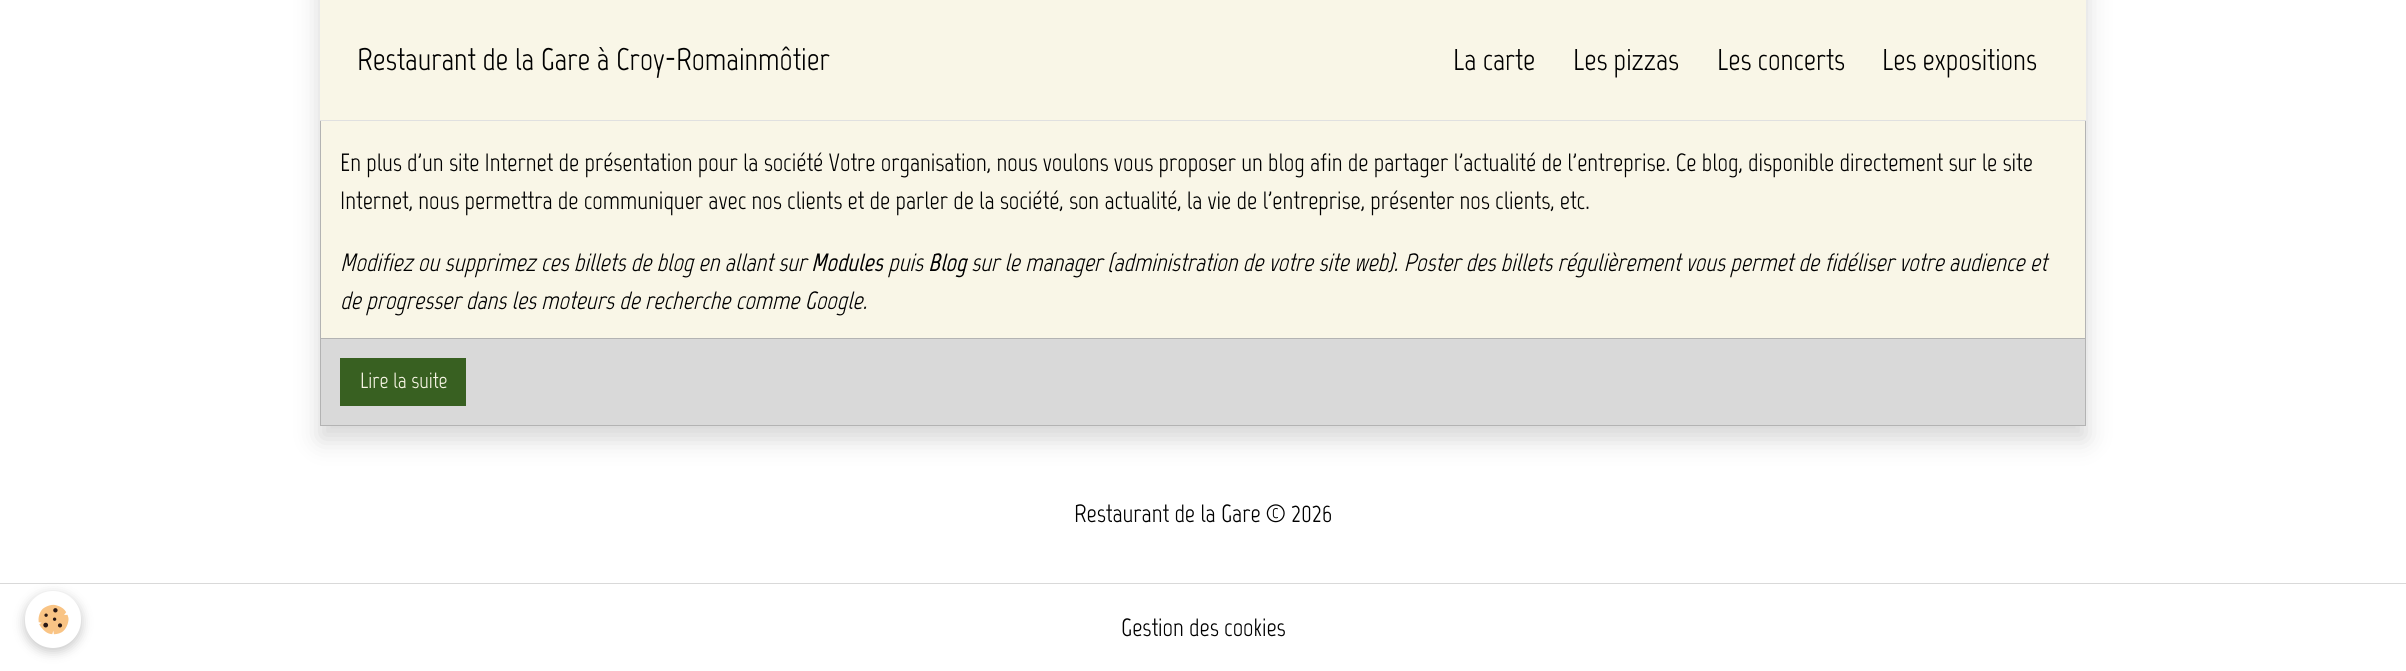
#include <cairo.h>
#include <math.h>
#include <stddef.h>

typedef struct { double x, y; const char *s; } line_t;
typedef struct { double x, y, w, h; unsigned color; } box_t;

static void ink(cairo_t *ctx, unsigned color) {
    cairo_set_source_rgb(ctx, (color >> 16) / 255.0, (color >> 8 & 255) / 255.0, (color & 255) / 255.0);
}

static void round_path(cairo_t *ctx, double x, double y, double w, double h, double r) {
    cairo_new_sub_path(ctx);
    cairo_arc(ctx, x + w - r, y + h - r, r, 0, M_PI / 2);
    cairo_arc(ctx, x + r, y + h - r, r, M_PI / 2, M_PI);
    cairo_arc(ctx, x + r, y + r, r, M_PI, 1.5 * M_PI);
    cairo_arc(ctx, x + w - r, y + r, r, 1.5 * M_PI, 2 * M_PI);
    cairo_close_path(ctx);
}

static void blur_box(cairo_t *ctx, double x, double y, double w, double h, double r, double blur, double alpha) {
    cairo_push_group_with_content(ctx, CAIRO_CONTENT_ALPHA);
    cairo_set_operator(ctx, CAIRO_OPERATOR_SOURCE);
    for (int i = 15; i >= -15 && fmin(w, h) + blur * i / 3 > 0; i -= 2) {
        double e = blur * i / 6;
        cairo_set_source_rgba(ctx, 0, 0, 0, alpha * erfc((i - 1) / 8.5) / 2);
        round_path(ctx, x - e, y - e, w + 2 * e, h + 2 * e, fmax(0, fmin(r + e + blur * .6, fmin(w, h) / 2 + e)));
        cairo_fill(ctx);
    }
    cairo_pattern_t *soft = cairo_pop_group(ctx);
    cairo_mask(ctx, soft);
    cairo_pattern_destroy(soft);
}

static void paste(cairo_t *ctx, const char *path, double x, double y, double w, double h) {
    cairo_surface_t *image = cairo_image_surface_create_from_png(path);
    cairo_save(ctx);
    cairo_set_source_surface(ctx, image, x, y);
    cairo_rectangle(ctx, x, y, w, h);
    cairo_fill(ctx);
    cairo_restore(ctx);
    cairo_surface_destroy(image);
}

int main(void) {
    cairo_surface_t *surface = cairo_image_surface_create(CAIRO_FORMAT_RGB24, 2406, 671);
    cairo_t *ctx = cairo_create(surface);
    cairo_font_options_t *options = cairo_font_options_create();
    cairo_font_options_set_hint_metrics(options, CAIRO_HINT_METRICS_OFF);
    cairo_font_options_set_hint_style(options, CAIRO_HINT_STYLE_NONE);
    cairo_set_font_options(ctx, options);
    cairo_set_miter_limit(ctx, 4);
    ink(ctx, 0xFFFFFF);
    cairo_paint(ctx);
    ink(ctx, 0x757575);
    blur_box(ctx, 320, -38, 1766, 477, 0, 12.5, 0.3);
    ink(ctx, 0xF9F6E7);
    cairo_rectangle(ctx, 321, 121, 1764, 217);
    cairo_fill(ctx);
    cairo_rectangle(ctx, 320.5, -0.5, 1765, 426);
    ink(ctx, 0xB3B3B3);
    cairo_set_line_width(ctx, 1);
    cairo_stroke(ctx);
    ink(ctx, 0xF9F6E7);
    cairo_rectangle(ctx, 320, 0, 1766, 120);
    cairo_fill(ctx);
    ink(ctx, 0xE0E0E0);
    cairo_rectangle(ctx, 320, 120, 1766, 1);
    cairo_fill(ctx);
    cairo_select_font_face(ctx, "Marvel", CAIRO_FONT_SLANT_NORMAL, CAIRO_FONT_WEIGHT_NORMAL);
    cairo_set_font_size(ctx, 31.25);
    ink(ctx, 0x000000);
    cairo_move_to(ctx, 357, 70);
    cairo_show_text(ctx, "Restaurant de la Gare à Croy-Romainmôtier");
    cairo_set_font_size(ctx, 30);
    {
        static const line_t items[] = {
            {1453, 70, "La carte"},
            {1573, 70, "Les pizzas"},
            {1717, 70, "Les concerts"},
            {1882, 70, "Les expositions"},
        };
        for (size_t i = 0; i < sizeof items / sizeof *items; i++) {
            cairo_move_to(ctx, items[i].x, items[i].y);
            cairo_show_text(ctx, items[i].s);
        }
    }
    cairo_set_font_size(ctx, 25);
    cairo_move_to(ctx, 340, 171);
    cairo_show_text(ctx, "En plus d'un site Internet de présentation pour la société Votre organisation, nous voulons vous proposer un blog afin de partager l'actualité de l'entreprise. Ce blog, disponible directement sur le site");
    cairo_move_to(ctx, 340, 209);
    cairo_show_text(ctx, "Internet, nous permettra de communiquer avec nos clients et de parler de la société, son actualité, la vie de l'entreprise, présenter nos clients, etc.");
    cairo_select_font_face(ctx, "Marvel", CAIRO_FONT_SLANT_ITALIC, CAIRO_FONT_WEIGHT_NORMAL);
    cairo_move_to(ctx, 340, 271);
    cairo_show_text(ctx, "Modifiez ou supprimez ces billets de blog en allant sur");
    cairo_select_font_face(ctx, "Marvel", CAIRO_FONT_SLANT_ITALIC, CAIRO_FONT_WEIGHT_BOLD);
    cairo_move_to(ctx, 811, 271);
    cairo_show_text(ctx, "Modules");
    cairo_select_font_face(ctx, "Marvel", CAIRO_FONT_SLANT_ITALIC, CAIRO_FONT_WEIGHT_NORMAL);
    cairo_move_to(ctx, 888, 271);
    cairo_show_text(ctx, "puis");
    cairo_select_font_face(ctx, "Marvel", CAIRO_FONT_SLANT_ITALIC, CAIRO_FONT_WEIGHT_BOLD);
    cairo_move_to(ctx, 928, 271);
    cairo_show_text(ctx, "Blog");
    cairo_select_font_face(ctx, "Marvel", CAIRO_FONT_SLANT_ITALIC, CAIRO_FONT_WEIGHT_NORMAL);
    cairo_move_to(ctx, 971, 271);
    cairo_show_text(ctx, "sur le manager (administration de votre site web). Poster des billets régulièrement vous permet de fidéliser votre audience et");
    cairo_move_to(ctx, 340, 309);
    cairo_show_text(ctx, "de progresser dans les moteurs de recherche comme Google.");
    {
        static const box_t items[] = {
            {321, 339, 1764, 86, 0xD9D9D9},
            {321, 338, 1764, 1, 0xB3B3B3},
            {340, 358, 126, 48, 0x386021},
        };
        for (size_t i = 0; i < sizeof items / sizeof *items; i++) {
            ink(ctx, items[i].color);
            cairo_rectangle(ctx, items[i].x, items[i].y, items[i].w, items[i].h);
            cairo_fill(ctx);
        }
    }
    cairo_select_font_face(ctx, "Marvel", CAIRO_FONT_SLANT_NORMAL, CAIRO_FONT_WEIGHT_NORMAL);
    cairo_set_font_size(ctx, 22);
    ink(ctx, 0xF9F6E7);
    cairo_move_to(ctx, 360, 388);
    cairo_show_text(ctx, "Lire la suite");
    ink(ctx, 0xD9D9D9);
    cairo_rectangle(ctx, 0, 583, 2406, 1);
    cairo_fill(ctx);
    ink(ctx, 0x000000);
    blur_box(ctx, 25, 595, 56, 56, 28, 6, 0.24);
    ink(ctx, 0xFFFFFF);
    round_path(ctx, 25, 591, 56, 57, 28);
    cairo_fill(ctx);
    paste(ctx, "media/1.png", 38, 604, 31, 31);
    cairo_set_font_size(ctx, 25);
    ink(ctx, 0x000000);
    cairo_move_to(ctx, 1074, 522);
    cairo_show_text(ctx, "Restaurant de la Gare © 2026");
    cairo_move_to(ctx, 1121, 636);
    cairo_show_text(ctx, "Gestion des cookies");
    cairo_surface_write_to_png(surface, "image.png");
    cairo_font_options_destroy(options);
    cairo_destroy(ctx);
    cairo_surface_destroy(surface);
    return 0;
}
